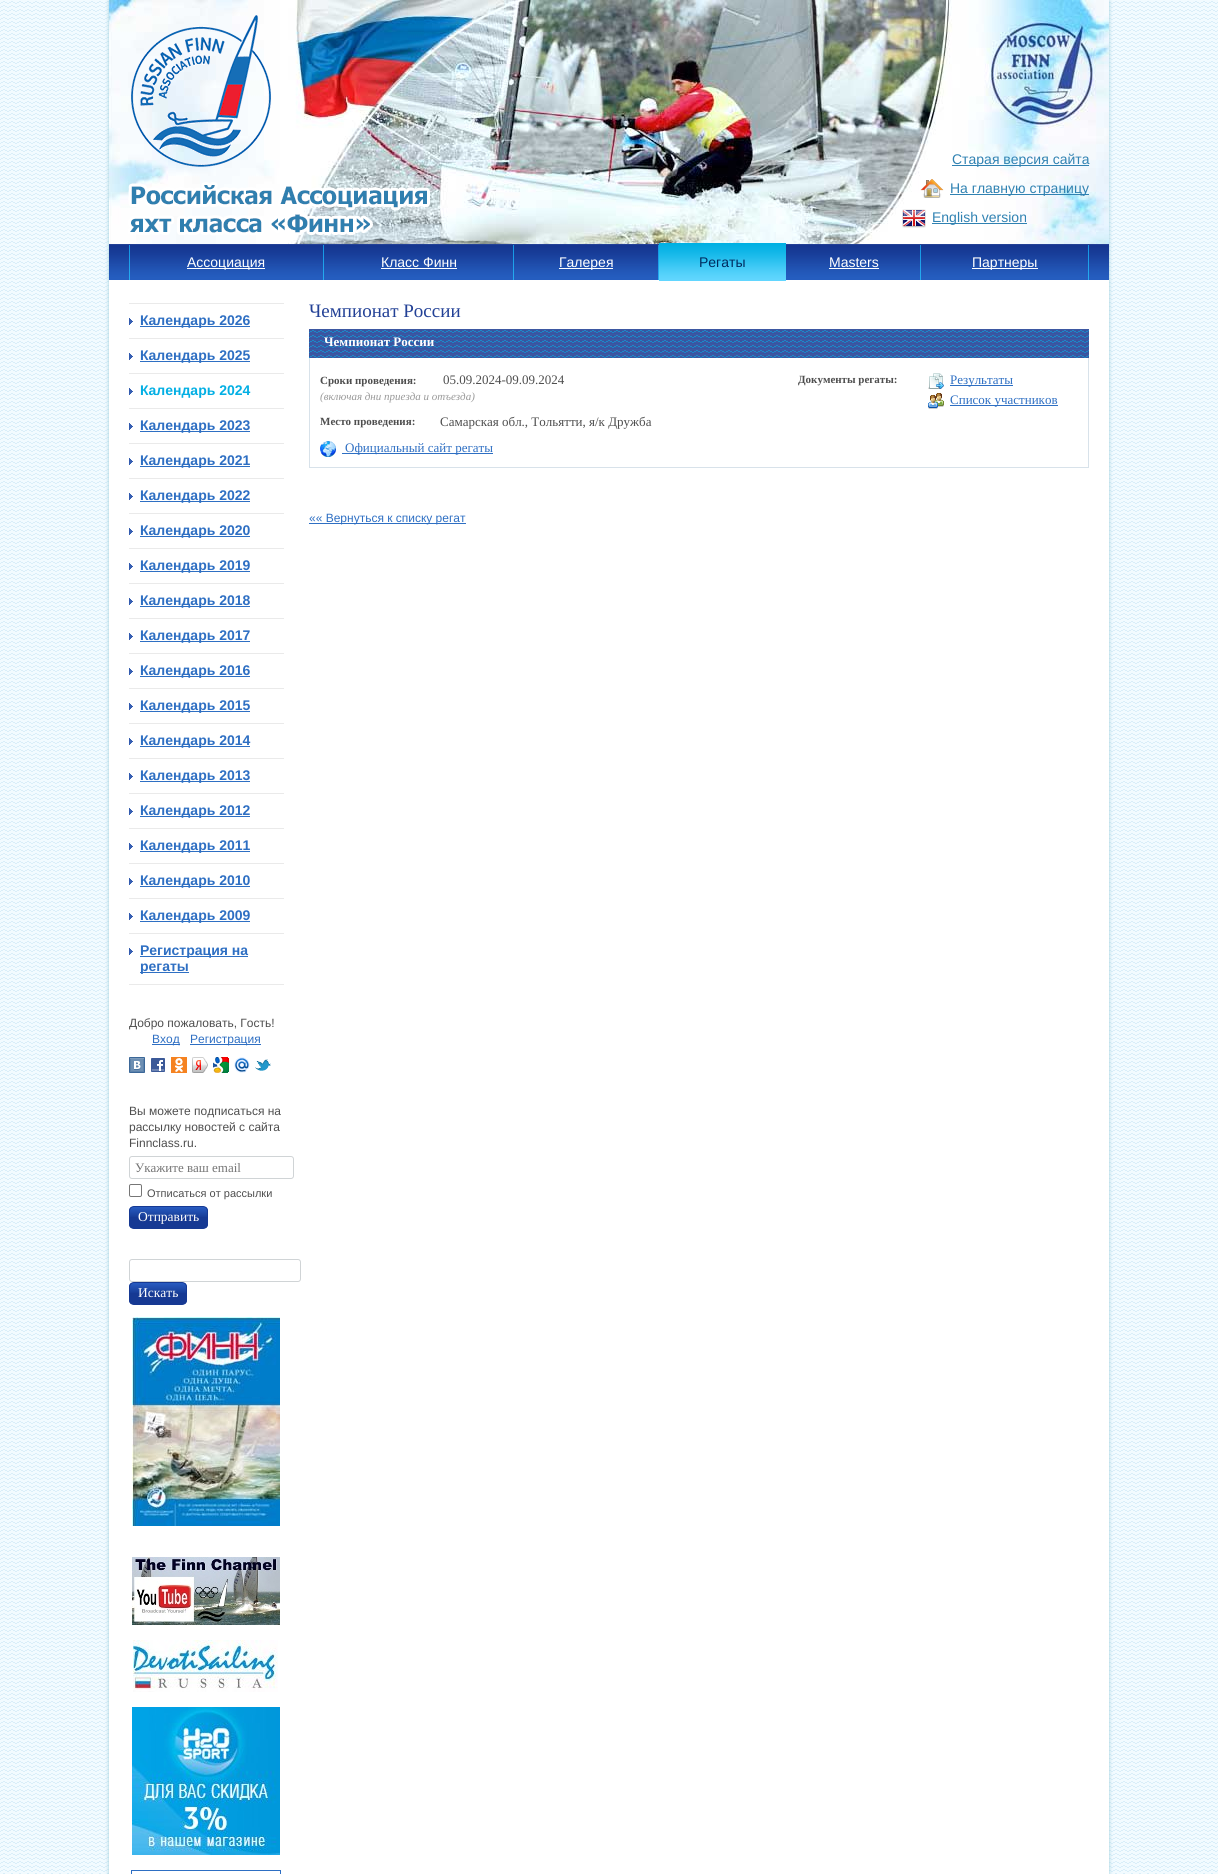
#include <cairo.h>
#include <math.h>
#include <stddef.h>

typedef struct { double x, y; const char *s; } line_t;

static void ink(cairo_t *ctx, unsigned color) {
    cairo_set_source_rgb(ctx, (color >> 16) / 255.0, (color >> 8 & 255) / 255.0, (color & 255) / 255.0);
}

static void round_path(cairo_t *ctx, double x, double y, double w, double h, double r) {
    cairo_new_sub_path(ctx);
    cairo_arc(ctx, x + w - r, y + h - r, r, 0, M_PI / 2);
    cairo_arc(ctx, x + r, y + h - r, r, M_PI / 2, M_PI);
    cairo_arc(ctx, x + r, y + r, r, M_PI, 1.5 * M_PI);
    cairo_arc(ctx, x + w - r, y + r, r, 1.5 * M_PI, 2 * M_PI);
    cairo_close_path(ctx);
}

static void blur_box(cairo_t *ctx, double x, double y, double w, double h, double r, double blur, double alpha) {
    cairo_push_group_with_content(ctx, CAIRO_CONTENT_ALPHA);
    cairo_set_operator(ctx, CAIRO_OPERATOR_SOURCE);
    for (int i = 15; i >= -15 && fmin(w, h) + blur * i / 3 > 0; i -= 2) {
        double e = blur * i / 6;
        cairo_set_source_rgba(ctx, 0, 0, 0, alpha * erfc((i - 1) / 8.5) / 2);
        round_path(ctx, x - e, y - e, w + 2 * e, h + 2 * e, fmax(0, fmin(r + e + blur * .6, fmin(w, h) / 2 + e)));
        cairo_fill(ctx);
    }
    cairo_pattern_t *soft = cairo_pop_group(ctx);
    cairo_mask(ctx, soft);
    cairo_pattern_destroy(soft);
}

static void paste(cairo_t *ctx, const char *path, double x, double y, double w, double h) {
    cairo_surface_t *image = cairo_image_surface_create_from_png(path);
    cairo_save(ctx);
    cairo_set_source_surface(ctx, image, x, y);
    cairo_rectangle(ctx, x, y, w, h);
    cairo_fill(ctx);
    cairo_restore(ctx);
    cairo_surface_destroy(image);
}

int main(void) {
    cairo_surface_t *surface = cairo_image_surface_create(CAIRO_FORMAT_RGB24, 1218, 1874);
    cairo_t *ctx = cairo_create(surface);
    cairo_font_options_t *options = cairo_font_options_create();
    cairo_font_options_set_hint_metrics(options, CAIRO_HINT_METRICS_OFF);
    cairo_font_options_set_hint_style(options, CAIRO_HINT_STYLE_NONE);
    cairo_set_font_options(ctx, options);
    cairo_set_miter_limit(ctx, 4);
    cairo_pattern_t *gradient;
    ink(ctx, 0xFFFFFF);
    cairo_paint(ctx);
    paste(ctx, "media/1.png", 0, 0, 1218, 1874);
    ink(ctx, 0x9CCCDC);
    blur_box(ctx, 109, 1, 1000, 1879, 0, 2, 1);
    ink(ctx, 0xFFFFFF);
    cairo_rectangle(ctx, 109, 280, 1000, 1594);
    cairo_fill(ctx);
    paste(ctx, "media/2.png", 109, 0, 1000, 244);
    paste(ctx, "media/3.png", 131, 15, 140, 152);
    paste(ctx, "media/4.png", 128, 182, 302, 54);
    ink(ctx, 0x3082B2);
    cairo_rectangle(ctx, 952, 165, 137, 1);
    cairo_fill(ctx);
    cairo_select_font_face(ctx, "Liberation Sans", CAIRO_FONT_SLANT_NORMAL, CAIRO_FONT_WEIGHT_NORMAL);
    cairo_set_font_size(ctx, 14);
    cairo_move_to(ctx, 952, 164);
    cairo_show_text(ctx, "Старая версия сайта");
    paste(ctx, "media/5.png", 920, 179, 24, 19);
    cairo_rectangle(ctx, 950, 194, 139, 1);
    cairo_fill(ctx);
    cairo_move_to(ctx, 950, 193);
    cairo_show_text(ctx, "На главную страницу");
    paste(ctx, "media/6.png", 902, 209, 24, 19);
    cairo_rectangle(ctx, 932, 223, 95, 1);
    cairo_fill(ctx);
    cairo_move_to(ctx, 932, 222);
    cairo_show_text(ctx, "English version");
    paste(ctx, "media/7.png", 109, 244, 1000, 36);
    paste(ctx, "media/8.png", 129, 245, 1, 35);
    paste(ctx, "media/8.png", 323, 245, 1, 35);
    ink(ctx, 0xFFFFFF);
    cairo_rectangle(ctx, 187, 268, 78, 1);
    cairo_fill(ctx);
    cairo_move_to(ctx, 187, 267);
    cairo_show_text(ctx, "Ассоциация");
    paste(ctx, "media/8.png", 513, 245, 1, 35);
    cairo_move_to(ctx, 381, 267);
    cairo_show_text(ctx, "Класс Финн");
    cairo_rectangle(ctx, 381, 268, 76, 1);
    cairo_fill(ctx);
    paste(ctx, "media/8.png", 658, 245, 1, 35);
    cairo_rectangle(ctx, 559, 268, 54, 1);
    cairo_fill(ctx);
    cairo_move_to(ctx, 559, 267);
    cairo_show_text(ctx, "Галерея");
    paste(ctx, "media/9.png", 659, 243, 127, 38);
    ink(ctx, 0x002C5F);
    cairo_move_to(ctx, 699, 267);
    cairo_show_text(ctx, "Регаты");
    paste(ctx, "media/8.png", 920, 245, 1, 35);
    ink(ctx, 0xFFFFFF);
    cairo_move_to(ctx, 829, 267);
    cairo_show_text(ctx, "Masters");
    cairo_rectangle(ctx, 829, 268, 50, 1);
    cairo_fill(ctx);
    paste(ctx, "media/8.png", 1088, 245, 1, 35);
    cairo_rectangle(ctx, 972, 268, 66, 1);
    cairo_fill(ctx);
    cairo_move_to(ctx, 972, 267);
    cairo_show_text(ctx, "Партнеры");
    ink(ctx, 0xEAEAEA);
    cairo_rectangle(ctx, 129, 303, 155, 1);
    cairo_fill(ctx);
    cairo_rectangle(ctx, 129, 338, 155, 1);
    cairo_fill(ctx);
    paste(ctx, "media/10.png", 129, 318, 4, 7);
    ink(ctx, 0x2E6FC3);
    cairo_rectangle(ctx, 140, 326, 110, 1);
    cairo_fill(ctx);
    cairo_select_font_face(ctx, "Liberation Sans", CAIRO_FONT_SLANT_NORMAL, CAIRO_FONT_WEIGHT_BOLD);
    cairo_move_to(ctx, 140, 325);
    cairo_show_text(ctx, "Календарь 2026");
    ink(ctx, 0xEAEAEA);
    cairo_rectangle(ctx, 129, 373, 155, 1);
    cairo_fill(ctx);
    paste(ctx, "media/10.png", 129, 353, 4, 7);
    ink(ctx, 0x2E6FC3);
    cairo_rectangle(ctx, 140, 361, 110, 1);
    cairo_fill(ctx);
    cairo_move_to(ctx, 140, 360);
    cairo_show_text(ctx, "Календарь 2025");
    ink(ctx, 0xEAEAEA);
    cairo_rectangle(ctx, 129, 408, 155, 1);
    cairo_fill(ctx);
    paste(ctx, "media/10.png", 129, 388, 4, 7);
    ink(ctx, 0x03AFE4);
    cairo_move_to(ctx, 140, 395);
    cairo_show_text(ctx, "Календарь 2024");
    ink(ctx, 0xEAEAEA);
    cairo_rectangle(ctx, 129, 443, 155, 1);
    cairo_fill(ctx);
    paste(ctx, "media/10.png", 129, 423, 4, 7);
    ink(ctx, 0x2E6FC3);
    cairo_rectangle(ctx, 140, 431, 110, 1);
    cairo_fill(ctx);
    cairo_move_to(ctx, 140, 430);
    cairo_show_text(ctx, "Календарь 2023");
    ink(ctx, 0xEAEAEA);
    cairo_rectangle(ctx, 129, 478, 155, 1);
    cairo_fill(ctx);
    paste(ctx, "media/10.png", 129, 458, 4, 7);
    ink(ctx, 0x2E6FC3);
    cairo_rectangle(ctx, 140, 466, 110, 1);
    cairo_fill(ctx);
    cairo_move_to(ctx, 140, 465);
    cairo_show_text(ctx, "Календарь 2021");
    ink(ctx, 0xEAEAEA);
    cairo_rectangle(ctx, 129, 513, 155, 1);
    cairo_fill(ctx);
    paste(ctx, "media/10.png", 129, 493, 4, 7);
    ink(ctx, 0x2E6FC3);
    cairo_rectangle(ctx, 140, 501, 110, 1);
    cairo_fill(ctx);
    cairo_move_to(ctx, 140, 500);
    cairo_show_text(ctx, "Календарь 2022");
    ink(ctx, 0xEAEAEA);
    cairo_rectangle(ctx, 129, 548, 155, 1);
    cairo_fill(ctx);
    paste(ctx, "media/10.png", 129, 528, 4, 7);
    ink(ctx, 0x2E6FC3);
    cairo_rectangle(ctx, 140, 536, 110, 1);
    cairo_fill(ctx);
    cairo_move_to(ctx, 140, 535);
    cairo_show_text(ctx, "Календарь 2020");
    ink(ctx, 0xEAEAEA);
    cairo_rectangle(ctx, 129, 583, 155, 1);
    cairo_fill(ctx);
    paste(ctx, "media/10.png", 129, 563, 4, 7);
    ink(ctx, 0x2E6FC3);
    cairo_rectangle(ctx, 140, 571, 110, 1);
    cairo_fill(ctx);
    cairo_move_to(ctx, 140, 570);
    cairo_show_text(ctx, "Календарь 2019");
    ink(ctx, 0xEAEAEA);
    cairo_rectangle(ctx, 129, 618, 155, 1);
    cairo_fill(ctx);
    paste(ctx, "media/10.png", 129, 598, 4, 7);
    ink(ctx, 0x2E6FC3);
    cairo_rectangle(ctx, 140, 606, 110, 1);
    cairo_fill(ctx);
    cairo_move_to(ctx, 140, 605);
    cairo_show_text(ctx, "Календарь 2018");
    ink(ctx, 0xEAEAEA);
    cairo_rectangle(ctx, 129, 653, 155, 1);
    cairo_fill(ctx);
    paste(ctx, "media/10.png", 129, 633, 4, 7);
    ink(ctx, 0x2E6FC3);
    cairo_rectangle(ctx, 140, 641, 110, 1);
    cairo_fill(ctx);
    cairo_move_to(ctx, 140, 640);
    cairo_show_text(ctx, "Календарь 2017");
    ink(ctx, 0xEAEAEA);
    cairo_rectangle(ctx, 129, 688, 155, 1);
    cairo_fill(ctx);
    paste(ctx, "media/10.png", 129, 668, 4, 7);
    ink(ctx, 0x2E6FC3);
    cairo_rectangle(ctx, 140, 676, 110, 1);
    cairo_fill(ctx);
    cairo_move_to(ctx, 140, 675);
    cairo_show_text(ctx, "Календарь 2016");
    ink(ctx, 0xEAEAEA);
    cairo_rectangle(ctx, 129, 723, 155, 1);
    cairo_fill(ctx);
    paste(ctx, "media/10.png", 129, 703, 4, 7);
    ink(ctx, 0x2E6FC3);
    cairo_rectangle(ctx, 140, 711, 110, 1);
    cairo_fill(ctx);
    cairo_move_to(ctx, 140, 710);
    cairo_show_text(ctx, "Календарь 2015");
    ink(ctx, 0xEAEAEA);
    cairo_rectangle(ctx, 129, 758, 155, 1);
    cairo_fill(ctx);
    paste(ctx, "media/10.png", 129, 738, 4, 7);
    ink(ctx, 0x2E6FC3);
    cairo_rectangle(ctx, 140, 746, 110, 1);
    cairo_fill(ctx);
    cairo_move_to(ctx, 140, 745);
    cairo_show_text(ctx, "Календарь 2014");
    ink(ctx, 0xEAEAEA);
    cairo_rectangle(ctx, 129, 793, 155, 1);
    cairo_fill(ctx);
    paste(ctx, "media/10.png", 129, 773, 4, 7);
    ink(ctx, 0x2E6FC3);
    cairo_rectangle(ctx, 140, 781, 110, 1);
    cairo_fill(ctx);
    cairo_move_to(ctx, 140, 780);
    cairo_show_text(ctx, "Календарь 2013");
    ink(ctx, 0xEAEAEA);
    cairo_rectangle(ctx, 129, 828, 155, 1);
    cairo_fill(ctx);
    paste(ctx, "media/10.png", 129, 808, 4, 7);
    ink(ctx, 0x2E6FC3);
    cairo_rectangle(ctx, 140, 816, 110, 1);
    cairo_fill(ctx);
    cairo_move_to(ctx, 140, 815);
    cairo_show_text(ctx, "Календарь 2012");
    ink(ctx, 0xEAEAEA);
    cairo_rectangle(ctx, 129, 863, 155, 1);
    cairo_fill(ctx);
    paste(ctx, "media/10.png", 129, 843, 4, 7);
    ink(ctx, 0x2E6FC3);
    cairo_rectangle(ctx, 140, 851, 110, 1);
    cairo_fill(ctx);
    cairo_move_to(ctx, 140, 850);
    cairo_show_text(ctx, "Календарь 2011");
    ink(ctx, 0xEAEAEA);
    cairo_rectangle(ctx, 129, 898, 155, 1);
    cairo_fill(ctx);
    paste(ctx, "media/10.png", 129, 878, 4, 7);
    ink(ctx, 0x2E6FC3);
    cairo_rectangle(ctx, 140, 886, 110, 1);
    cairo_fill(ctx);
    cairo_move_to(ctx, 140, 885);
    cairo_show_text(ctx, "Календарь 2010");
    ink(ctx, 0xEAEAEA);
    cairo_rectangle(ctx, 129, 933, 155, 1);
    cairo_fill(ctx);
    paste(ctx, "media/10.png", 129, 913, 4, 7);
    ink(ctx, 0x2E6FC3);
    cairo_rectangle(ctx, 140, 921, 110, 1);
    cairo_fill(ctx);
    cairo_move_to(ctx, 140, 920);
    cairo_show_text(ctx, "Календарь 2009");
    ink(ctx, 0xEAEAEA);
    cairo_rectangle(ctx, 129, 984, 155, 1);
    cairo_fill(ctx);
    paste(ctx, "media/10.png", 129, 948, 4, 7);
    ink(ctx, 0x2E6FC3);
    cairo_rectangle(ctx, 140, 956, 108, 1);
    cairo_fill(ctx);
    cairo_move_to(ctx, 140, 955);
    cairo_show_text(ctx, "Регистрация на");
    cairo_rectangle(ctx, 140, 972, 49, 1);
    cairo_fill(ctx);
    cairo_move_to(ctx, 140, 971);
    cairo_show_text(ctx, "регаты");
    cairo_select_font_face(ctx, "Liberation Sans", CAIRO_FONT_SLANT_NORMAL, CAIRO_FONT_WEIGHT_NORMAL);
    cairo_set_font_size(ctx, 12);
    ink(ctx, 0x4E4E4E);
    cairo_move_to(ctx, 129, 1027);
    cairo_show_text(ctx, "Добро пожаловать, Гость!");
    ink(ctx, 0x2E6FC3);
    cairo_rectangle(ctx, 152, 1044, 28, 1);
    cairo_fill(ctx);
    cairo_move_to(ctx, 152, 1043);
    cairo_show_text(ctx, "Вход");
    cairo_rectangle(ctx, 190, 1044, 71, 1);
    cairo_fill(ctx);
    cairo_move_to(ctx, 190, 1043);
    cairo_show_text(ctx, "Регистрация");
    paste(ctx, "media/11.png", 129, 1057, 16, 16);
    paste(ctx, "media/12.png", 151, 1058, 14, 14);
    paste(ctx, "media/13.png", 171, 1057, 16, 16);
    paste(ctx, "media/14.png", 192, 1057, 16, 16);
    paste(ctx, "media/15.png", 213, 1057, 16, 16);
    paste(ctx, "media/16.png", 234, 1057, 16, 16);
    paste(ctx, "media/17.png", 255, 1059, 16, 12);
    ink(ctx, 0x4E4E4E);
    {
        static const line_t items[] = {
            {129, 1115, "Вы можете подписаться на"},
            {129, 1131, "рассылку новостей с сайта"},
            {129, 1147, "Finnclass.ru."},
        };
        for (size_t i = 0; i < sizeof items / sizeof *items; i++) {
            cairo_move_to(ctx, items[i].x, items[i].y);
            cairo_show_text(ctx, items[i].s);
        }
    }
    round_path(ctx, 129.5, 1156.5, 164, 22, 2.5);
    ink(ctx, 0xD0D4D6);
    cairo_set_line_width(ctx, 1);
    cairo_stroke(ctx);
    cairo_select_font_face(ctx, "Liberation Serif", CAIRO_FONT_SLANT_NORMAL, CAIRO_FONT_WEIGHT_NORMAL);
    cairo_set_font_size(ctx, 13);
    ink(ctx, 0x757575);
    cairo_move_to(ctx, 135, 1172);
    cairo_show_text(ctx, "Укажите ваш email");
    round_path(ctx, 129.5, 1184.5, 12, 12, 1.5);
    ink(ctx, 0x767676);
    cairo_stroke(ctx);
    cairo_select_font_face(ctx, "Liberation Sans", CAIRO_FONT_SLANT_NORMAL, CAIRO_FONT_WEIGHT_NORMAL);
    cairo_set_font_size(ctx, 11);
    ink(ctx, 0x4E4E4E);
    cairo_move_to(ctx, 147, 1197);
    cairo_show_text(ctx, "Отписаться от рассылки");
    cairo_save(ctx);
    round_path(ctx, 129, 1206, 79, 23, 5);
    cairo_clip(ctx);
    gradient = cairo_pattern_create_linear(169, 1207, 169, 1228);
    cairo_pattern_add_color_stop_rgba(gradient, 0, 0.157, 0.361, 0.757, 1);
    cairo_pattern_add_color_stop_rgba(gradient, 0.49, 0.09, 0.235, 0.592, 1);
    cairo_pattern_add_color_stop_rgba(gradient, 0.5, 0.086, 0.224, 0.576, 1);
    cairo_pattern_add_color_stop_rgba(gradient, 1, 0.086, 0.224, 0.576, 1);
    cairo_set_source(ctx, gradient);
    cairo_pattern_destroy(gradient);
    cairo_rectangle(ctx, 129, 1207, 79, 21);
    cairo_fill(ctx);
    cairo_restore(ctx);
    round_path(ctx, 129.5, 1206.5, 78, 22, 4.5);
    ink(ctx, 0x163993);
    cairo_stroke(ctx);
    cairo_select_font_face(ctx, "Liberation Serif", CAIRO_FONT_SLANT_NORMAL, CAIRO_FONT_WEIGHT_NORMAL);
    cairo_set_font_size(ctx, 13.5);
    ink(ctx, 0xFFFFFF);
    cairo_move_to(ctx, 138, 1221);
    cairo_show_text(ctx, "Отправить");
    round_path(ctx, 129.5, 1259.5, 171, 22, 2.5);
    ink(ctx, 0xD0D4D6);
    cairo_stroke(ctx);
    cairo_save(ctx);
    round_path(ctx, 129, 1282, 58, 23, 5);
    cairo_clip(ctx);
    gradient = cairo_pattern_create_linear(158, 1283, 158, 1304);
    cairo_pattern_add_color_stop_rgba(gradient, 0, 0.157, 0.361, 0.757, 1);
    cairo_pattern_add_color_stop_rgba(gradient, 0.49, 0.09, 0.235, 0.592, 1);
    cairo_pattern_add_color_stop_rgba(gradient, 0.5, 0.086, 0.224, 0.576, 1);
    cairo_pattern_add_color_stop_rgba(gradient, 1, 0.086, 0.224, 0.576, 1);
    cairo_set_source(ctx, gradient);
    cairo_pattern_destroy(gradient);
    cairo_rectangle(ctx, 129, 1283, 58, 21);
    cairo_fill(ctx);
    cairo_restore(ctx);
    round_path(ctx, 129.5, 1282.5, 57, 22, 4.5);
    ink(ctx, 0x163993);
    cairo_stroke(ctx);
    ink(ctx, 0xFFFFFF);
    cairo_move_to(ctx, 138, 1297);
    cairo_show_text(ctx, "Искать");
    paste(ctx, "media/18.png", 132, 1317, 148, 209);
    paste(ctx, "media/19.png", 132, 1557, 148, 68);
    paste(ctx, "media/20.png", 133, 1640, 145, 52);
    paste(ctx, "media/21.png", 132, 1707, 148, 148);
    cairo_rectangle(ctx, 131.5, 1870.5, 149, 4);
    ink(ctx, 0x2E6FC3);
    cairo_stroke(ctx);
    cairo_set_font_size(ctx, 19);
    ink(ctx, 0x234196);
    cairo_move_to(ctx, 309, 317);
    cairo_show_text(ctx, "Чемпионат России");
    cairo_rectangle(ctx, 309.5, 356.5, 779, 111);
    ink(ctx, 0xD8E2EA);
    cairo_stroke(ctx);
    paste(ctx, "media/22.png", 309, 329, 780, 29);
    cairo_select_font_face(ctx, "Liberation Serif", CAIRO_FONT_SLANT_NORMAL, CAIRO_FONT_WEIGHT_BOLD);
    cairo_set_font_size(ctx, 13);
    ink(ctx, 0xFFFFFF);
    cairo_move_to(ctx, 324, 346);
    cairo_show_text(ctx, "Чемпионат России");
    cairo_set_font_size(ctx, 11);
    ink(ctx, 0x4E4E4E);
    cairo_move_to(ctx, 320, 384);
    cairo_show_text(ctx, "Сроки проведения:");
    cairo_select_font_face(ctx, "Liberation Serif", CAIRO_FONT_SLANT_NORMAL, CAIRO_FONT_WEIGHT_NORMAL);
    cairo_set_font_size(ctx, 13);
    cairo_move_to(ctx, 443, 384);
    cairo_show_text(ctx, "05.09.2024-09.09.2024");
    cairo_select_font_face(ctx, "Liberation Serif", CAIRO_FONT_SLANT_ITALIC, CAIRO_FONT_WEIGHT_NORMAL);
    cairo_set_font_size(ctx, 11);
    ink(ctx, 0x999999);
    cairo_move_to(ctx, 320, 400);
    cairo_show_text(ctx, "(включая дни приезда и отъезда)");
    cairo_select_font_face(ctx, "Liberation Serif", CAIRO_FONT_SLANT_NORMAL, CAIRO_FONT_WEIGHT_BOLD);
    ink(ctx, 0x4E4E4E);
    cairo_move_to(ctx, 798, 383);
    cairo_show_text(ctx, "Документы регаты:");
    paste(ctx, "media/23.png", 928, 373, 16, 16);
    ink(ctx, 0x2E6FC3);
    cairo_rectangle(ctx, 950, 385, 63, 1);
    cairo_fill(ctx);
    cairo_select_font_face(ctx, "Liberation Serif", CAIRO_FONT_SLANT_NORMAL, CAIRO_FONT_WEIGHT_NORMAL);
    cairo_set_font_size(ctx, 13);
    cairo_move_to(ctx, 950, 384);
    cairo_show_text(ctx, "Результаты");
    paste(ctx, "media/24.png", 928, 393, 16, 16);
    cairo_rectangle(ctx, 950, 405, 108, 1);
    cairo_fill(ctx);
    cairo_move_to(ctx, 950, 404);
    cairo_show_text(ctx, "Список участников");
    cairo_select_font_face(ctx, "Liberation Serif", CAIRO_FONT_SLANT_NORMAL, CAIRO_FONT_WEIGHT_BOLD);
    cairo_set_font_size(ctx, 11);
    ink(ctx, 0x4E4E4E);
    cairo_move_to(ctx, 320, 425);
    cairo_show_text(ctx, "Место проведения:");
    cairo_select_font_face(ctx, "Liberation Serif", CAIRO_FONT_SLANT_NORMAL, CAIRO_FONT_WEIGHT_NORMAL);
    cairo_set_font_size(ctx, 13);
    cairo_move_to(ctx, 440, 426);
    cairo_show_text(ctx, "Самарская обл., Тольятти, я/к Дружба");
    paste(ctx, "media/25.png", 320, 441, 16, 16);
    ink(ctx, 0x2E6FC3);
    cairo_rectangle(ctx, 342, 453, 151, 1);
    cairo_fill(ctx);
    cairo_move_to(ctx, 345, 452);
    cairo_show_text(ctx, "Официальный сайт регаты");
    cairo_rectangle(ctx, 309, 523, 157, 1);
    cairo_fill(ctx);
    cairo_select_font_face(ctx, "Liberation Sans", CAIRO_FONT_SLANT_NORMAL, CAIRO_FONT_WEIGHT_NORMAL);
    cairo_set_font_size(ctx, 12);
    cairo_move_to(ctx, 309, 522);
    cairo_show_text(ctx, "«« Вернуться к списку регат");
    cairo_surface_write_to_png(surface, "image.png");
    cairo_font_options_destroy(options);
    cairo_destroy(ctx);
    cairo_surface_destroy(surface);
    return 0;
}
